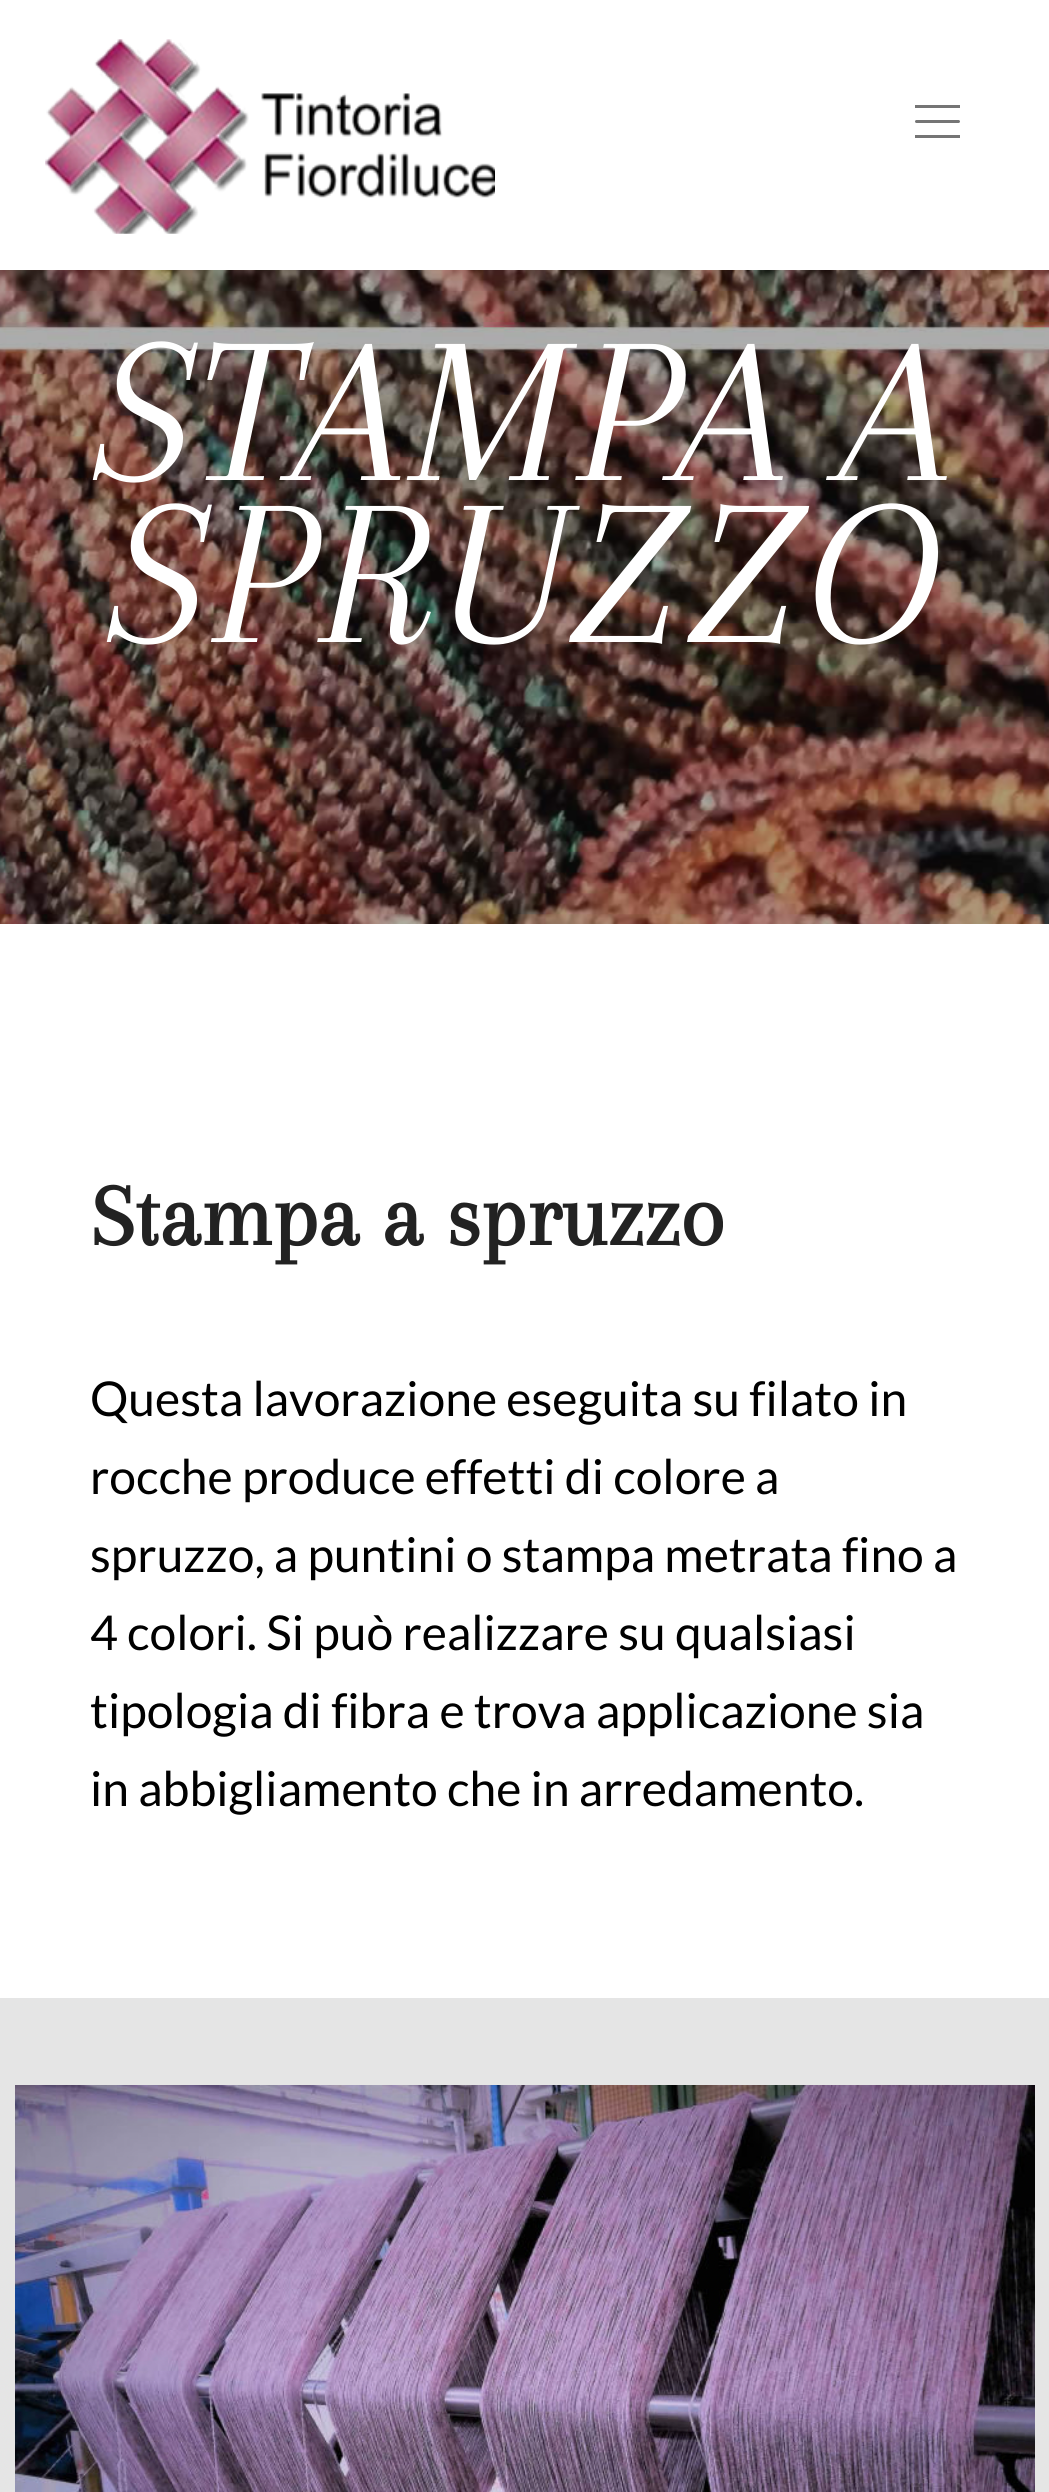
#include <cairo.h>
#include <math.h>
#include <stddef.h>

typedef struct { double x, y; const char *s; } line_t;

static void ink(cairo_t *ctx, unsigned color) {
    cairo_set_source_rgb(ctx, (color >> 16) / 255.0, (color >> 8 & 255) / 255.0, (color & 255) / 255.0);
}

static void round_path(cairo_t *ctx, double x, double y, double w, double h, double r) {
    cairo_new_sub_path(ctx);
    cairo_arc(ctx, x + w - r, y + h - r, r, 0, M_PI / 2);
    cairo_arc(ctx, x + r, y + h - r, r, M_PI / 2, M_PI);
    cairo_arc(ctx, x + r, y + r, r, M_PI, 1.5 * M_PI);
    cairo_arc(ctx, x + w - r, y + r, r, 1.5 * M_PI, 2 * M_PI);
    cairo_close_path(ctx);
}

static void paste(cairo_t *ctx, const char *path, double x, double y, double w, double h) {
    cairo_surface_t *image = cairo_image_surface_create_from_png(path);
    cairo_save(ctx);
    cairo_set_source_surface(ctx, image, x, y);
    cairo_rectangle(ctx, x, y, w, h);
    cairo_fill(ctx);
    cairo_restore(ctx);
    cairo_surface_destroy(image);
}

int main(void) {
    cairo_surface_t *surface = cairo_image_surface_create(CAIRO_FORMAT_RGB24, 1049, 2492);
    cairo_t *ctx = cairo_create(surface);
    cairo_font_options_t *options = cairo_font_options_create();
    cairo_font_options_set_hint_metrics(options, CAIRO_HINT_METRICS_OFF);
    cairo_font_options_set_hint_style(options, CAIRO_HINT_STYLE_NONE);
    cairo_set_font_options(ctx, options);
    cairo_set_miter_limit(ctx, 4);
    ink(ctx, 0xFFFFFF);
    cairo_paint(ctx);
    paste(ctx, "media/1.png", 45, 39, 450, 195);
    ink(ctx, 0x757575);
    round_path(ctx, 915, 120, 45, 3, 1.5);
    cairo_fill(ctx);
    cairo_rectangle(ctx, 915, 105, 45, 3);
    cairo_fill(ctx);
    cairo_rectangle(ctx, 915, 135, 45, 3);
    cairo_fill(ctx);
    paste(ctx, "media/2.png", 0, 270, 1049, 654);
    cairo_select_font_face(ctx, "Arapey", CAIRO_FONT_SLANT_ITALIC, CAIRO_FONT_WEIGHT_NORMAL);
    cairo_set_font_size(ctx, 216);
    ink(ctx, 0xFFFFFF);
    cairo_move_to(ctx, 96, 480);
    cairo_show_text(ctx, "STAMPA A");
    cairo_move_to(ctx, 110, 642);
    cairo_show_text(ctx, "SPRUZZO");
    cairo_select_font_face(ctx, "Arapey", CAIRO_FONT_SLANT_NORMAL, CAIRO_FONT_WEIGHT_BOLD);
    cairo_set_font_size(ctx, 90);
    ink(ctx, 0x222222);
    cairo_move_to(ctx, 90, 1245);
    cairo_show_text(ctx, "Stampa a spruzzo");
    cairo_select_font_face(ctx, "Lato", CAIRO_FONT_SLANT_NORMAL, CAIRO_FONT_WEIGHT_NORMAL);
    cairo_set_font_size(ctx, 48);
    ink(ctx, 0x000000);
    {
        static const line_t items[] = {
            {90, 1416, "Questa lavorazione eseguita su filato in"},
            {90, 1494, "rocche produce effetti di colore a"},
            {90, 1572, "spruzzo, a puntini o stampa metrata fino a"},
            {90, 1650, "4 colori. Si può realizzare su qualsiasi"},
            {90, 1728, "tipologia di fibra e trova applicazione sia"},
            {90, 1806, "in abbigliamento che in arredamento."},
        };
        for (size_t i = 0; i < sizeof items / sizeof *items; i++) {
            cairo_move_to(ctx, items[i].x, items[i].y);
            cairo_show_text(ctx, items[i].s);
        }
    }
    ink(ctx, 0xE5E5E5);
    cairo_rectangle(ctx, 0, 1998, 1049, 494);
    cairo_fill(ctx);
    paste(ctx, "media/3.png", 15, 2085, 1020, 407);
    cairo_surface_write_to_png(surface, "image.png");
    cairo_font_options_destroy(options);
    cairo_destroy(ctx);
    cairo_surface_destroy(surface);
    return 0;
}
